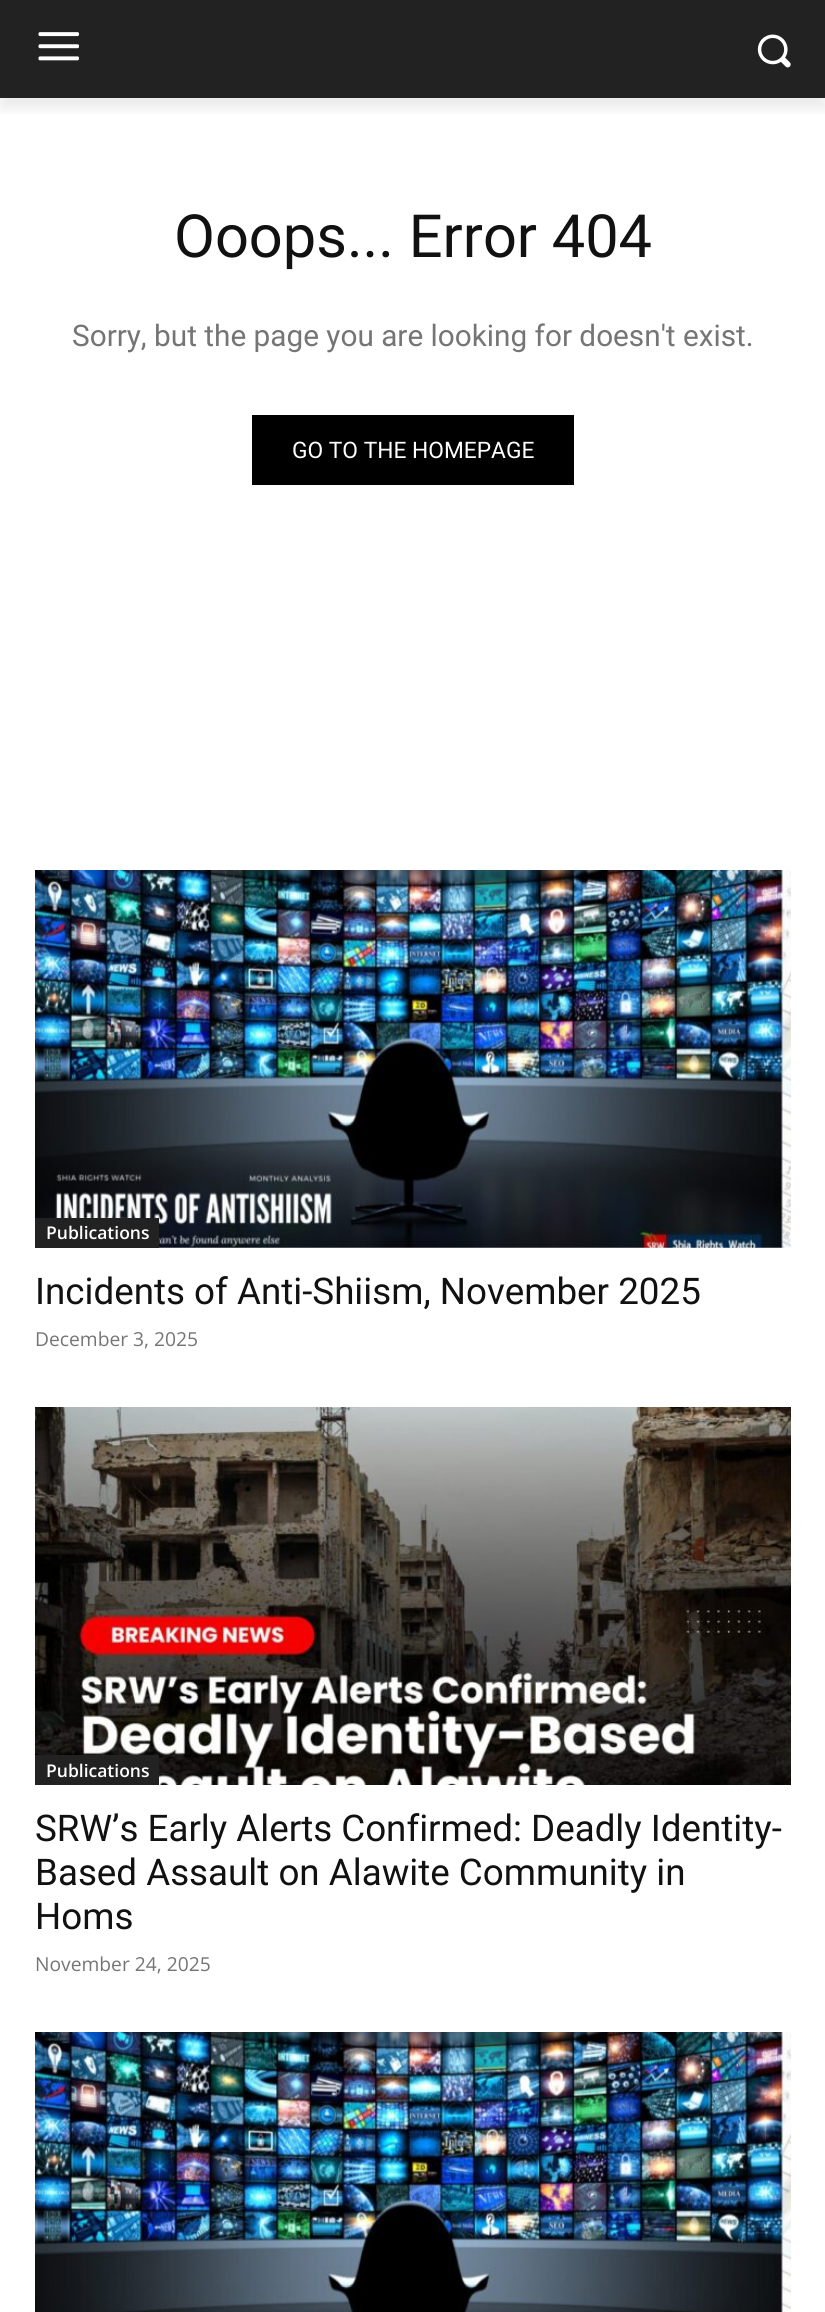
#include <cairo.h>
#include <math.h>
#include <stddef.h>

typedef struct { double x, y; const char *s; } line_t;

static void ink(cairo_t *ctx, unsigned color) {
    cairo_set_source_rgb(ctx, (color >> 16) / 255.0, (color >> 8 & 255) / 255.0, (color & 255) / 255.0);
}

static void round_path(cairo_t *ctx, double x, double y, double w, double h, double r) {
    cairo_new_sub_path(ctx);
    cairo_arc(ctx, x + w - r, y + h - r, r, 0, M_PI / 2);
    cairo_arc(ctx, x + r, y + h - r, r, M_PI / 2, M_PI);
    cairo_arc(ctx, x + r, y + r, r, M_PI, 1.5 * M_PI);
    cairo_arc(ctx, x + w - r, y + r, r, 1.5 * M_PI, 2 * M_PI);
    cairo_close_path(ctx);
}

static void blur_box(cairo_t *ctx, double x, double y, double w, double h, double r, double blur, double alpha) {
    cairo_push_group_with_content(ctx, CAIRO_CONTENT_ALPHA);
    cairo_set_operator(ctx, CAIRO_OPERATOR_SOURCE);
    for (int i = 15; i >= -15 && fmin(w, h) + blur * i / 3 > 0; i -= 2) {
        double e = blur * i / 6;
        cairo_set_source_rgba(ctx, 0, 0, 0, alpha * erfc((i - 1) / 8.5) / 2);
        round_path(ctx, x - e, y - e, w + 2 * e, h + 2 * e, fmax(0, fmin(r + e + blur * .6, fmin(w, h) / 2 + e)));
        cairo_fill(ctx);
    }
    cairo_pattern_t *soft = cairo_pop_group(ctx);
    cairo_mask(ctx, soft);
    cairo_pattern_destroy(soft);
}

static void paste(cairo_t *ctx, const char *path, double x, double y, double w, double h) {
    cairo_surface_t *image = cairo_image_surface_create_from_png(path);
    cairo_save(ctx);
    cairo_set_source_surface(ctx, image, x, y);
    cairo_rectangle(ctx, x, y, w, h);
    cairo_fill(ctx);
    cairo_restore(ctx);
    cairo_surface_destroy(image);
}

int main(void) {
    cairo_surface_t *surface = cairo_image_surface_create(CAIRO_FORMAT_RGB24, 825, 2312);
    cairo_t *ctx = cairo_create(surface);
    cairo_font_options_t *options = cairo_font_options_create();
    cairo_font_options_set_hint_metrics(options, CAIRO_HINT_METRICS_OFF);
    cairo_font_options_set_hint_style(options, CAIRO_HINT_STYLE_NONE);
    cairo_set_font_options(ctx, options);
    cairo_set_miter_limit(ctx, 4);
    ink(ctx, 0xFFFFFF);
    cairo_paint(ctx);
    ink(ctx, 0x222222);
    cairo_rectangle(ctx, 0, 0, 825, 98);
    cairo_fill(ctx);
    paste(ctx, "media/1.png", 38, 32, 41, 29);
    paste(ctx, "media/2.png", 757, 34, 34, 34);
    cairo_save(ctx);
    cairo_rectangle(ctx, 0, 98, 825, 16);
    cairo_clip(ctx);
    ink(ctx, 0x000000);
    blur_box(ctx, 0, 11, 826, 98, 0, 7, 0.08);
    cairo_restore(ctx);
    cairo_select_font_face(ctx, "Roboto", CAIRO_FONT_SLANT_NORMAL, CAIRO_FONT_WEIGHT_NORMAL);
    cairo_set_font_size(ctx, 59.5);
    ink(ctx, 0x111111);
    cairo_move_to(ctx, 174, 257);
    cairo_show_text(ctx, "Ooops... Error 404");
    cairo_set_font_size(ctx, 29.75);
    ink(ctx, 0x757575);
    cairo_move_to(ctx, 72, 346);
    cairo_show_text(ctx, "Sorry, but the page you are looking for doesn't exist.");
    ink(ctx, 0x000000);
    cairo_rectangle(ctx, 252, 415, 322, 70);
    cairo_fill(ctx);
    cairo_set_font_size(ctx, 22.75);
    ink(ctx, 0xFFFFFF);
    cairo_move_to(ctx, 292, 458);
    cairo_show_text(ctx, "GO TO THE HOMEPAGE");
    paste(ctx, "media/3.png", 35, 870, 756, 378);
    ink(ctx, 0x222222);
    cairo_rectangle(ctx, 35, 1218, 124, 30);
    cairo_fill(ctx);
    cairo_select_font_face(ctx, "Open Sans SemiBold", CAIRO_FONT_SLANT_NORMAL, CAIRO_FONT_WEIGHT_NORMAL);
    cairo_set_font_size(ctx, 17.5);
    ink(ctx, 0xFFFFFF);
    cairo_move_to(ctx, 46, 1239);
    cairo_show_text(ctx, "Publications");
    cairo_select_font_face(ctx, "Roboto", CAIRO_FONT_SLANT_NORMAL, CAIRO_FONT_WEIGHT_NORMAL);
    cairo_set_font_size(ctx, 36.75);
    ink(ctx, 0x111111);
    cairo_move_to(ctx, 35, 1304);
    cairo_show_text(ctx, "Incidents of Anti-Shiism, November 2025");
    cairo_select_font_face(ctx, "Open Sans", CAIRO_FONT_SLANT_NORMAL, CAIRO_FONT_WEIGHT_NORMAL);
    cairo_set_font_size(ctx, 19.25);
    ink(ctx, 0x757575);
    cairo_move_to(ctx, 35, 1346);
    cairo_show_text(ctx, "December 3, 2025");
    paste(ctx, "media/4.png", 35, 1407, 756, 378);
    ink(ctx, 0x222222);
    cairo_rectangle(ctx, 35, 1755, 124, 30);
    cairo_fill(ctx);
    cairo_select_font_face(ctx, "Open Sans SemiBold", CAIRO_FONT_SLANT_NORMAL, CAIRO_FONT_WEIGHT_NORMAL);
    cairo_set_font_size(ctx, 17.5);
    ink(ctx, 0xFFFFFF);
    cairo_move_to(ctx, 46, 1777);
    cairo_show_text(ctx, "Publications");
    cairo_select_font_face(ctx, "Roboto", CAIRO_FONT_SLANT_NORMAL, CAIRO_FONT_WEIGHT_NORMAL);
    cairo_set_font_size(ctx, 36.75);
    ink(ctx, 0x111111);
    {
        static const line_t items[] = {
            {35, 1841, "SRW’s Early Alerts Confirmed: Deadly Identity-"},
            {35, 1885, "Based Assault on Alawite Community in"},
            {35, 1929, "Homs"},
        };
        for (size_t i = 0; i < sizeof items / sizeof *items; i++) {
            cairo_move_to(ctx, items[i].x, items[i].y);
            cairo_show_text(ctx, items[i].s);
        }
    }
    cairo_select_font_face(ctx, "Open Sans", CAIRO_FONT_SLANT_NORMAL, CAIRO_FONT_WEIGHT_NORMAL);
    cairo_set_font_size(ctx, 19.25);
    ink(ctx, 0x757575);
    cairo_move_to(ctx, 35, 1971);
    cairo_show_text(ctx, "November 24, 2025");
    paste(ctx, "media/5.png", 35, 2032, 756, 280);
    cairo_surface_write_to_png(surface, "image.png");
    cairo_font_options_destroy(options);
    cairo_destroy(ctx);
    cairo_surface_destroy(surface);
    return 0;
}
